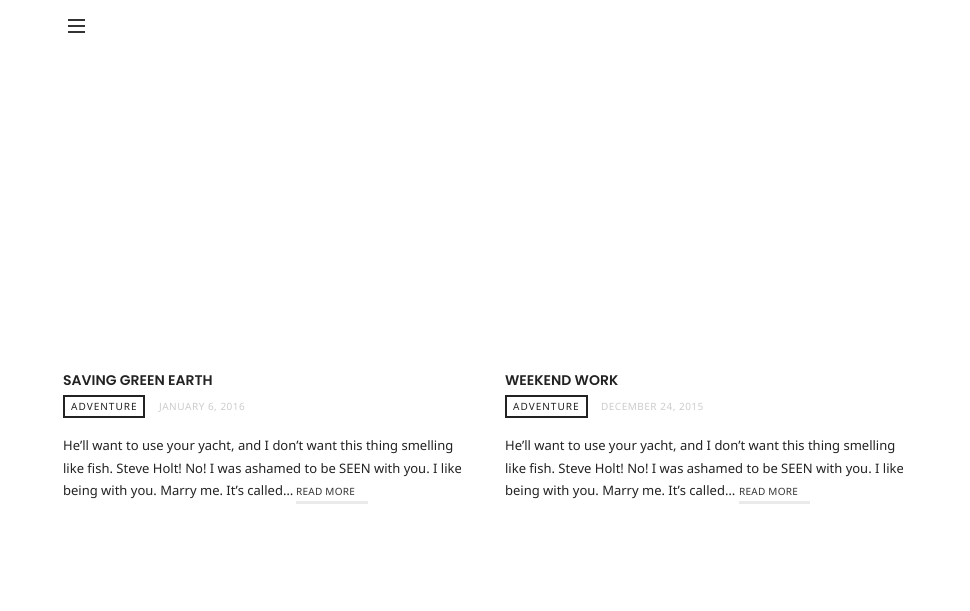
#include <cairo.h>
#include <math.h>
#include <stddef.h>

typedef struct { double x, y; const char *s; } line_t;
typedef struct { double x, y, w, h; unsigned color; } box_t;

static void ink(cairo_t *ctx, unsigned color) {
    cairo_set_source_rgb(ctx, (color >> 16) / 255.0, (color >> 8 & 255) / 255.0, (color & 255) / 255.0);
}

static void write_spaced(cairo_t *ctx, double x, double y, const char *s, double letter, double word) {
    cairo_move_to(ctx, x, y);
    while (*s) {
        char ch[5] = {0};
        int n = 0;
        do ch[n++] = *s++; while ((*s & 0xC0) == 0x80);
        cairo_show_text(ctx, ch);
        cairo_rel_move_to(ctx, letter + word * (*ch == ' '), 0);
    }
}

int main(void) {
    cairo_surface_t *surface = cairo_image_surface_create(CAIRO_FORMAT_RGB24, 970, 611);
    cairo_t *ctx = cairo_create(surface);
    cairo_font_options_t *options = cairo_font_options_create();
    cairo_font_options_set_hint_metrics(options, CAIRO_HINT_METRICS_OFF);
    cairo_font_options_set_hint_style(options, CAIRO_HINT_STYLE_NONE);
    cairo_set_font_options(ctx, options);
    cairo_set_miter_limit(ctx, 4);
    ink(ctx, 0xFFFFFF);
    cairo_paint(ctx);
    {
        static const box_t items[] = {
            {68, 25, 17, 2, 0x333333},
            {68, 19, 17, 2, 0x333333},
            {68, 31, 17, 2, 0x333333},
        };
        for (size_t i = 0; i < sizeof items / sizeof *items; i++) {
            ink(ctx, items[i].color);
            cairo_rectangle(ctx, items[i].x, items[i].y, items[i].w, items[i].h);
            cairo_fill(ctx);
        }
    }
    cairo_select_font_face(ctx, "Poppins SemiBold", CAIRO_FONT_SLANT_NORMAL, CAIRO_FONT_WEIGHT_NORMAL);
    cairo_set_font_size(ctx, 14);
    ink(ctx, 0x222222);
    cairo_move_to(ctx, 63, 385);
    cairo_show_text(ctx, "SAVING GREEN EARTH");
    cairo_rectangle(ctx, 64, 396, 80, 21);
    cairo_stroke(ctx);
    cairo_select_font_face(ctx, "Noto Sans", CAIRO_FONT_SLANT_NORMAL, CAIRO_FONT_WEIGHT_NORMAL);
    cairo_set_font_size(ctx, 10);
    write_spaced(ctx, 71, 410, "ADVENTURE", 1, 0);
    ink(ctx, 0xCCCCCC);
    write_spaced(ctx, 159, 410, "JANUARY 6, 2016", 0.5, 0);
    cairo_set_font_size(ctx, 13);
    ink(ctx, 0x222222);
    {
        static const line_t items[] = {
            {63, 450, "He’ll want to use your yacht, and I don’t want this thing smelling"},
            {63, 473, "like fish. Steve Holt! No! I was ashamed to be SEEN with you. I like"},
            {63, 495, "being with you. Marry me. It’s called…"},
        };
        for (size_t i = 0; i < sizeof items / sizeof *items; i++) {
            cairo_move_to(ctx, items[i].x, items[i].y);
            cairo_show_text(ctx, items[i].s);
        }
    }
    ink(ctx, 0xEAEAEA);
    cairo_rectangle(ctx, 296, 501, 72, 3);
    cairo_fill(ctx);
    cairo_set_font_size(ctx, 10);
    ink(ctx, 0x333333);
    write_spaced(ctx, 296, 495, "READ MORE", 0.25, 0);
    cairo_select_font_face(ctx, "Poppins SemiBold", CAIRO_FONT_SLANT_NORMAL, CAIRO_FONT_WEIGHT_NORMAL);
    cairo_set_font_size(ctx, 14);
    ink(ctx, 0x222222);
    cairo_move_to(ctx, 505, 385);
    cairo_show_text(ctx, "WEEKEND WORK");
    cairo_rectangle(ctx, 506, 396, 81, 21);
    cairo_stroke(ctx);
    cairo_select_font_face(ctx, "Noto Sans", CAIRO_FONT_SLANT_NORMAL, CAIRO_FONT_WEIGHT_NORMAL);
    cairo_set_font_size(ctx, 10);
    write_spaced(ctx, 513, 410, "ADVENTURE", 1, 0);
    ink(ctx, 0xCCCCCC);
    write_spaced(ctx, 601, 410, "DECEMBER 24, 2015", 0.5, 0);
    cairo_set_font_size(ctx, 13);
    ink(ctx, 0x222222);
    {
        static const line_t items[] = {
            {505, 450, "He’ll want to use your yacht, and I don’t want this thing smelling"},
            {505, 473, "like fish. Steve Holt! No! I was ashamed to be SEEN with you. I like"},
            {505, 495, "being with you. Marry me. It’s called…"},
        };
        for (size_t i = 0; i < sizeof items / sizeof *items; i++) {
            cairo_move_to(ctx, items[i].x, items[i].y);
            cairo_show_text(ctx, items[i].s);
        }
    }
    ink(ctx, 0xEAEAEA);
    cairo_rectangle(ctx, 739, 501, 71, 3);
    cairo_fill(ctx);
    cairo_set_font_size(ctx, 10);
    ink(ctx, 0x333333);
    write_spaced(ctx, 739, 495, "READ MORE", 0.25, 0);
    cairo_surface_write_to_png(surface, "image.png");
    cairo_font_options_destroy(options);
    cairo_destroy(ctx);
    cairo_surface_destroy(surface);
    return 0;
}
